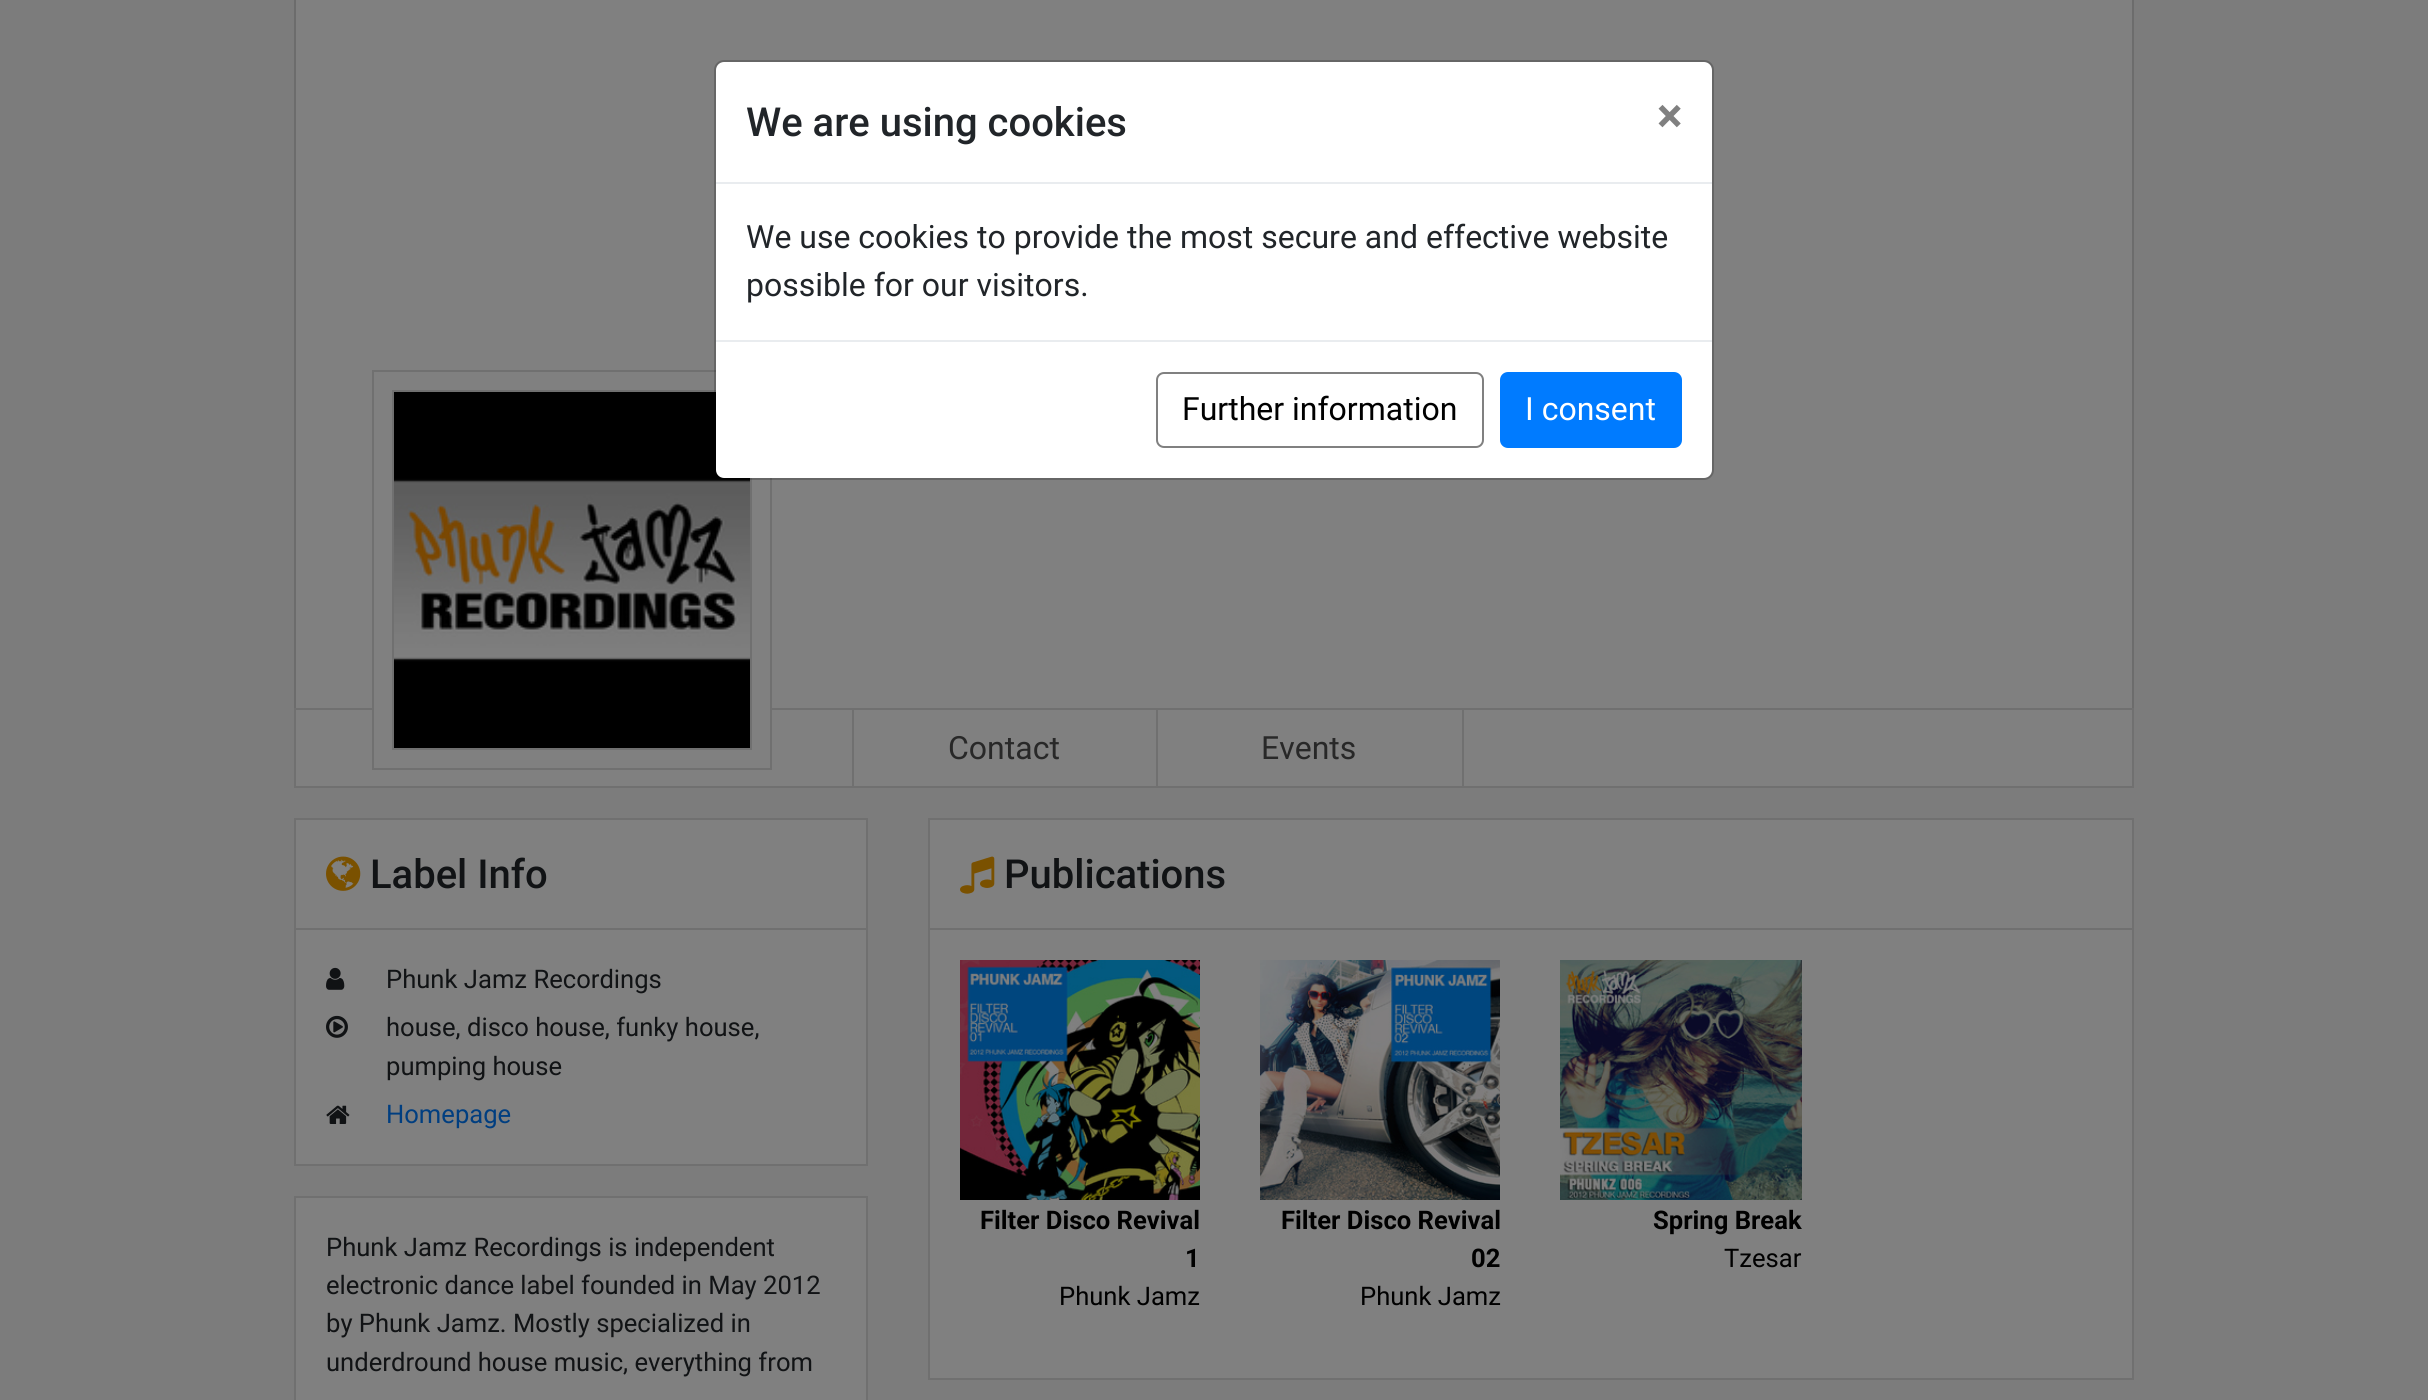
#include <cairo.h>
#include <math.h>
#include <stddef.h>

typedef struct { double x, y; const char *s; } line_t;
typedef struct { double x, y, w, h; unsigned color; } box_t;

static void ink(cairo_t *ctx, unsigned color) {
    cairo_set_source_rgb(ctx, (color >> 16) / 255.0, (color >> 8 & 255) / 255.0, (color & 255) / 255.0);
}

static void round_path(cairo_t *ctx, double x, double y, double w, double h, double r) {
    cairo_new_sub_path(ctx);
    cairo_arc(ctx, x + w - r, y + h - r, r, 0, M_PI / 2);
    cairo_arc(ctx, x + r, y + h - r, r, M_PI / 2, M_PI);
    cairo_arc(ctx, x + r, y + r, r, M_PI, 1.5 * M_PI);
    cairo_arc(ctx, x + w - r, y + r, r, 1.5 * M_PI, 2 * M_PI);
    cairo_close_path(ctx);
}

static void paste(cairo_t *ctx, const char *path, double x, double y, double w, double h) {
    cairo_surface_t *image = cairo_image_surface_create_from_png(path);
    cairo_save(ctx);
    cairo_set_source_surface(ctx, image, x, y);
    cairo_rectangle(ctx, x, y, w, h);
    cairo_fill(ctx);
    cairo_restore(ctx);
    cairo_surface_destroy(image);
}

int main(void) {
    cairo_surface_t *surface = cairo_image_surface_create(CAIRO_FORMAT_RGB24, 2428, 1400);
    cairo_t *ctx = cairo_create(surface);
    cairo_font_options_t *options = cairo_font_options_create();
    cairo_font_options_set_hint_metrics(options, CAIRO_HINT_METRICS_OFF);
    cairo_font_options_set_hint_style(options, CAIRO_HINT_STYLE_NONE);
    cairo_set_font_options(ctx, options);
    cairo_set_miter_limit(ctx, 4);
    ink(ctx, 0x7C7C7C);
    cairo_paint(ctx);
    ink(ctx, 0x808080);
    cairo_rectangle(ctx, 296, 0, 1836, 708);
    cairo_fill(ctx);
    cairo_rectangle(ctx, 295, 709, 1838, 78);
    cairo_fill_preserve(ctx);
    ink(ctx, 0x707070);
    cairo_stroke(ctx);
    ink(ctx, 0x808080);
    cairo_rectangle(ctx, 374, 708, 396, 2);
    cairo_fill(ctx);
    cairo_rectangle(ctx, 373, 371, 398, 398);
    ink(ctx, 0x707070);
    cairo_stroke(ctx);
    cairo_rectangle(ctx, 393, 391, 358, 358);
    cairo_stroke(ctx);
    paste(ctx, "media/1.png", 394, 392, 356, 356);
    ink(ctx, 0xFFFFFF);
    round_path(ctx, 716, 62, 996, 416, 8);
    cairo_fill(ctx);
    round_path(ctx, 715, 61, 998, 418, 9);
    cairo_set_source_rgba(ctx, 0, 0, 0, 0.2);
    cairo_stroke(ctx);
    ink(ctx, 0xE9ECEF);
    cairo_rectangle(ctx, 716, 182, 996, 2);
    cairo_fill(ctx);
    cairo_select_font_face(ctx, "Roboto Medium", CAIRO_FONT_SLANT_NORMAL, CAIRO_FONT_WEIGHT_NORMAL);
    cairo_set_font_size(ctx, 40);
    ink(ctx, 0x212529);
    cairo_move_to(ctx, 746, 136);
    cairo_show_text(ctx, "We are using cookies");
    cairo_select_font_face(ctx, "Roboto", CAIRO_FONT_SLANT_NORMAL, CAIRO_FONT_WEIGHT_BOLD);
    cairo_set_font_size(ctx, 48);
    ink(ctx, 0x808080);
    cairo_move_to(ctx, 1657, 132);
    cairo_show_text(ctx, "×");
    cairo_select_font_face(ctx, "Roboto", CAIRO_FONT_SLANT_NORMAL, CAIRO_FONT_WEIGHT_NORMAL);
    cairo_set_font_size(ctx, 32);
    ink(ctx, 0x212529);
    cairo_move_to(ctx, 746, 248);
    cairo_show_text(ctx, "We use cookies to provide the most secure and effective website");
    cairo_move_to(ctx, 746, 296);
    cairo_show_text(ctx, "possible for our visitors.");
    ink(ctx, 0xE9ECEF);
    cairo_rectangle(ctx, 716, 340, 996, 2);
    cairo_fill(ctx);
    round_path(ctx, 1157, 373, 326, 74, 7);
    ink(ctx, 0x808080);
    cairo_stroke(ctx);
    ink(ctx, 0x000000);
    cairo_move_to(ctx, 1182, 420);
    cairo_show_text(ctx, "Further information");
    ink(ctx, 0x007BFF);
    round_path(ctx, 1501, 373, 180, 74, 7);
    cairo_fill_preserve(ctx);
    cairo_stroke(ctx);
    ink(ctx, 0xFFFFFF);
    cairo_move_to(ctx, 1525, 420);
    cairo_show_text(ctx, "I consent");
    {
        static const box_t items[] = {
            {294, 0, 2, 708, 0x6C6C6C},
            {2132, 0, 2, 708, 0x6C6C6C},
            {1156, 710, 2, 76, 0x707070},
            {852, 710, 2, 76, 0x707070},
        };
        for (size_t i = 0; i < sizeof items / sizeof *items; i++) {
            ink(ctx, items[i].color);
            cairo_rectangle(ctx, items[i].x, items[i].y, items[i].w, items[i].h);
            cairo_fill(ctx);
        }
    }
    ink(ctx, 0x282828);
    cairo_move_to(ctx, 948, 759);
    cairo_show_text(ctx, "Contact");
    ink(ctx, 0x707070);
    cairo_rectangle(ctx, 1462, 710, 2, 76);
    cairo_fill(ctx);
    ink(ctx, 0x282828);
    cairo_move_to(ctx, 1261, 759);
    cairo_show_text(ctx, "Events");
    ink(ctx, 0x808080);
    cairo_rectangle(ctx, 295, 819, 572, 346);
    cairo_fill_preserve(ctx);
    ink(ctx, 0x707070);
    cairo_stroke(ctx);
    paste(ctx, "media/2.png", 326, 856, 35, 35);
    cairo_select_font_face(ctx, "Roboto Medium", CAIRO_FONT_SLANT_NORMAL, CAIRO_FONT_WEIGHT_NORMAL);
    cairo_set_font_size(ctx, 40);
    ink(ctx, 0x111315);
    cairo_move_to(ctx, 370, 888);
    cairo_show_text(ctx, "Label Info");
    ink(ctx, 0x707070);
    cairo_rectangle(ctx, 296, 928, 570, 2);
    cairo_fill(ctx);
    paste(ctx, "media/3.png", 326, 967, 19, 23);
    cairo_select_font_face(ctx, "Roboto", CAIRO_FONT_SLANT_NORMAL, CAIRO_FONT_WEIGHT_NORMAL);
    cairo_set_font_size(ctx, 25.6);
    ink(ctx, 0x111315);
    cairo_move_to(ctx, 386, 988);
    cairo_show_text(ctx, "Phunk Jamz Recordings");
    paste(ctx, "media/4.png", 326, 1015, 22, 23);
    cairo_move_to(ctx, 386, 1036);
    cairo_show_text(ctx, "house, disco house, funky house,");
    cairo_move_to(ctx, 386, 1075);
    cairo_show_text(ctx, "pumping house");
    paste(ctx, "media/5.png", 326, 1105, 24, 19);
    ink(ctx, 0x003E80);
    cairo_move_to(ctx, 386, 1123);
    cairo_show_text(ctx, "Homepage");
    ink(ctx, 0x808080);
    cairo_rectangle(ctx, 295, 1197, 572, 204);
    cairo_fill_preserve(ctx);
    ink(ctx, 0x707070);
    cairo_stroke(ctx);
    ink(ctx, 0x111315);
    {
        static const line_t items[] = {
            {326, 1256, "Phunk Jamz Recordings is independent"},
            {326, 1294, "electronic dance label founded in May 2012"},
            {326, 1332, "by Phunk Jamz. Mostly specialized in"},
            {326, 1371, "underdround house music, everything from"},
        };
        for (size_t i = 0; i < sizeof items / sizeof *items; i++) {
            cairo_move_to(ctx, items[i].x, items[i].y);
            cairo_show_text(ctx, items[i].s);
        }
    }
    ink(ctx, 0x808080);
    cairo_rectangle(ctx, 929, 819, 1204, 560);
    cairo_fill_preserve(ctx);
    ink(ctx, 0x707070);
    cairo_stroke(ctx);
    paste(ctx, "media/6.png", 960, 856, 35, 38);
    cairo_select_font_face(ctx, "Roboto Medium", CAIRO_FONT_SLANT_NORMAL, CAIRO_FONT_WEIGHT_NORMAL);
    cairo_set_font_size(ctx, 40);
    ink(ctx, 0x111315);
    cairo_move_to(ctx, 1004, 888);
    cairo_show_text(ctx, "Publications");
    ink(ctx, 0x707070);
    cairo_rectangle(ctx, 930, 928, 1202, 2);
    cairo_fill(ctx);
    paste(ctx, "media/7.png", 960, 960, 240, 240);
    cairo_select_font_face(ctx, "Roboto", CAIRO_FONT_SLANT_NORMAL, CAIRO_FONT_WEIGHT_BOLD);
    cairo_set_font_size(ctx, 25.6);
    ink(ctx, 0x000000);
    cairo_move_to(ctx, 980, 1229);
    cairo_show_text(ctx, "Filter Disco Revival");
    cairo_move_to(ctx, 1185, 1267);
    cairo_show_text(ctx, "1");
    cairo_select_font_face(ctx, "Roboto", CAIRO_FONT_SLANT_NORMAL, CAIRO_FONT_WEIGHT_NORMAL);
    cairo_move_to(ctx, 1059, 1305);
    cairo_show_text(ctx, "Phunk Jamz");
    paste(ctx, "media/8.png", 1260, 960, 240, 240);
    cairo_select_font_face(ctx, "Roboto", CAIRO_FONT_SLANT_NORMAL, CAIRO_FONT_WEIGHT_BOLD);
    cairo_move_to(ctx, 1281, 1229);
    cairo_show_text(ctx, "Filter Disco Revival");
    cairo_move_to(ctx, 1471, 1267);
    cairo_show_text(ctx, "02");
    cairo_select_font_face(ctx, "Roboto", CAIRO_FONT_SLANT_NORMAL, CAIRO_FONT_WEIGHT_NORMAL);
    cairo_move_to(ctx, 1360, 1305);
    cairo_show_text(ctx, "Phunk Jamz");
    paste(ctx, "media/9.png", 1560, 960, 242, 240);
    cairo_select_font_face(ctx, "Roboto", CAIRO_FONT_SLANT_NORMAL, CAIRO_FONT_WEIGHT_BOLD);
    cairo_move_to(ctx, 1653, 1229);
    cairo_show_text(ctx, "Spring Break");
    cairo_select_font_face(ctx, "Roboto", CAIRO_FONT_SLANT_NORMAL, CAIRO_FONT_WEIGHT_NORMAL);
    cairo_move_to(ctx, 1724, 1267);
    cairo_show_text(ctx, "Tzesar");
    cairo_surface_write_to_png(surface, "image.png");
    cairo_font_options_destroy(options);
    cairo_destroy(ctx);
    cairo_surface_destroy(surface);
    return 0;
}
